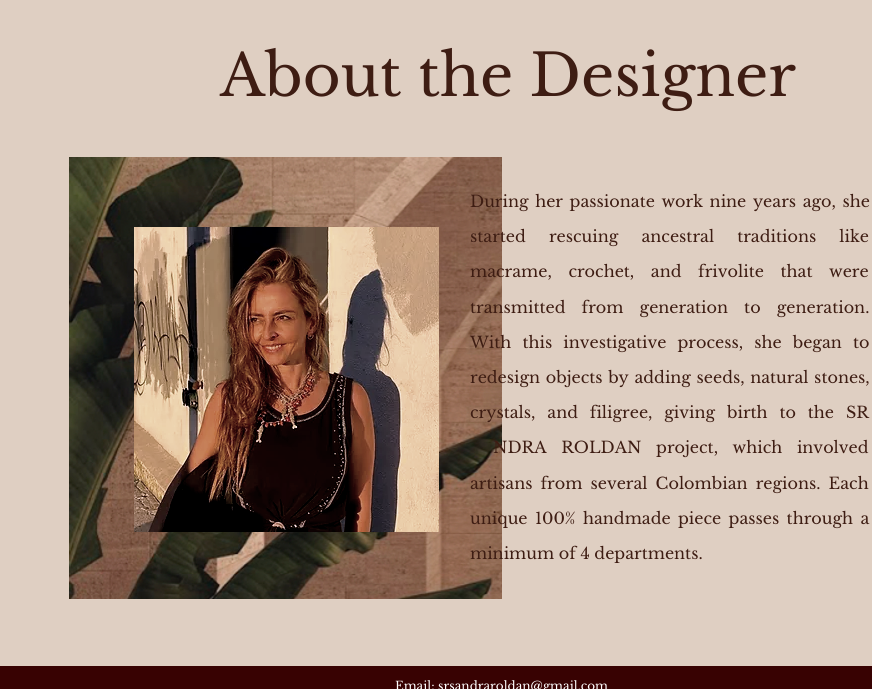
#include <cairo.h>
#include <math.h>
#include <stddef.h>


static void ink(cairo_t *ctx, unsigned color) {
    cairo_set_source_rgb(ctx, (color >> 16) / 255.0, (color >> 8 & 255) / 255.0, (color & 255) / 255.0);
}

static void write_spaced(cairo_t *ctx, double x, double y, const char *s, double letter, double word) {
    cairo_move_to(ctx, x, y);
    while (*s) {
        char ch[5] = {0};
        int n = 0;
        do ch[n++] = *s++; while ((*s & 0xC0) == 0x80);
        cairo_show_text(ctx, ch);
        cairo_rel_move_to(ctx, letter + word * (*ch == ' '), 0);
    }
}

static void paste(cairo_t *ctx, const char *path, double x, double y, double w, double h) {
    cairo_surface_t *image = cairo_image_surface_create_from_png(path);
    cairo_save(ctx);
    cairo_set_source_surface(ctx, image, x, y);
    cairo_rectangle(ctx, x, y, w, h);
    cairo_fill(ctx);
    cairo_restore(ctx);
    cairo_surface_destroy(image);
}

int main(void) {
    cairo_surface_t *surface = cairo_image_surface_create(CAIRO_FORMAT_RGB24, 872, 689);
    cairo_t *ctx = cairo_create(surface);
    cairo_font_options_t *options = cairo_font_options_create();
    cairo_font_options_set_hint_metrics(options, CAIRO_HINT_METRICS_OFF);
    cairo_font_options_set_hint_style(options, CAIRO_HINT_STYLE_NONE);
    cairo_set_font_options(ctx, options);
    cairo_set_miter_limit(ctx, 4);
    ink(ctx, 0xDFCFC2);
    cairo_paint(ctx);
    cairo_select_font_face(ctx, "Libre Baskerville", CAIRO_FONT_SLANT_NORMAL, CAIRO_FONT_WEIGHT_NORMAL);
    cairo_set_font_size(ctx, 58);
    ink(ctx, 0x3E1D13);
    cairo_move_to(ctx, 220, 96);
    cairo_show_text(ctx, "About the Designer");
    paste(ctx, "media/1.png", 69, 157, 433, 442);
    paste(ctx, "media/2.png", 134, 227, 305, 305);
    cairo_set_font_size(ctx, 16);
    write_spaced(ctx, 470, 207, "During her passionate work nine years ago, she", 0, 2);
    write_spaced(ctx, 470, 242, "started rescuing ancestral traditions like", 0, 18.5);
    write_spaced(ctx, 470, 277, "macrame, crochet, and frivolite that were", 0, 12);
    write_spaced(ctx, 470, 313, "transmitted from generation to generation.", 0, 11.5);
    write_spaced(ctx, 470, 348, "With this investigative process, she began to", 0, 6.5);
    write_spaced(ctx, 470, 383, "redesign objects by adding seeds, natural stones,", 0, 1);
    write_spaced(ctx, 470, 418, "crystals, and filigree, giving birth to the SR", 0, 7.25);
    write_spaced(ctx, 493, 453, "NDRA ROLDAN project, which involved", 0, 10);
    write_spaced(ctx, 470, 489, "artisans from several Colombian regions. Each", 0, 3.5);
    write_spaced(ctx, 470, 524, "unique 100% handmade piece passes through a", 0, 2.75);
    cairo_move_to(ctx, 470, 559);
    cairo_show_text(ctx, "minimum of 4 departments.");
    ink(ctx, 0x380202);
    cairo_rectangle(ctx, 0, 666, 872, 23);
    cairo_fill(ctx);
    cairo_select_font_face(ctx, "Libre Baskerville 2", CAIRO_FONT_SLANT_NORMAL, CAIRO_FONT_WEIGHT_NORMAL);
    cairo_set_font_size(ctx, 12);
    ink(ctx, 0xFFFFFF);
    cairo_move_to(ctx, 395, 690);
    cairo_show_text(ctx, "Email: srsandraroldan@gmail.com");
    cairo_surface_write_to_png(surface, "image.png");
    cairo_font_options_destroy(options);
    cairo_destroy(ctx);
    cairo_surface_destroy(surface);
    return 0;
}
